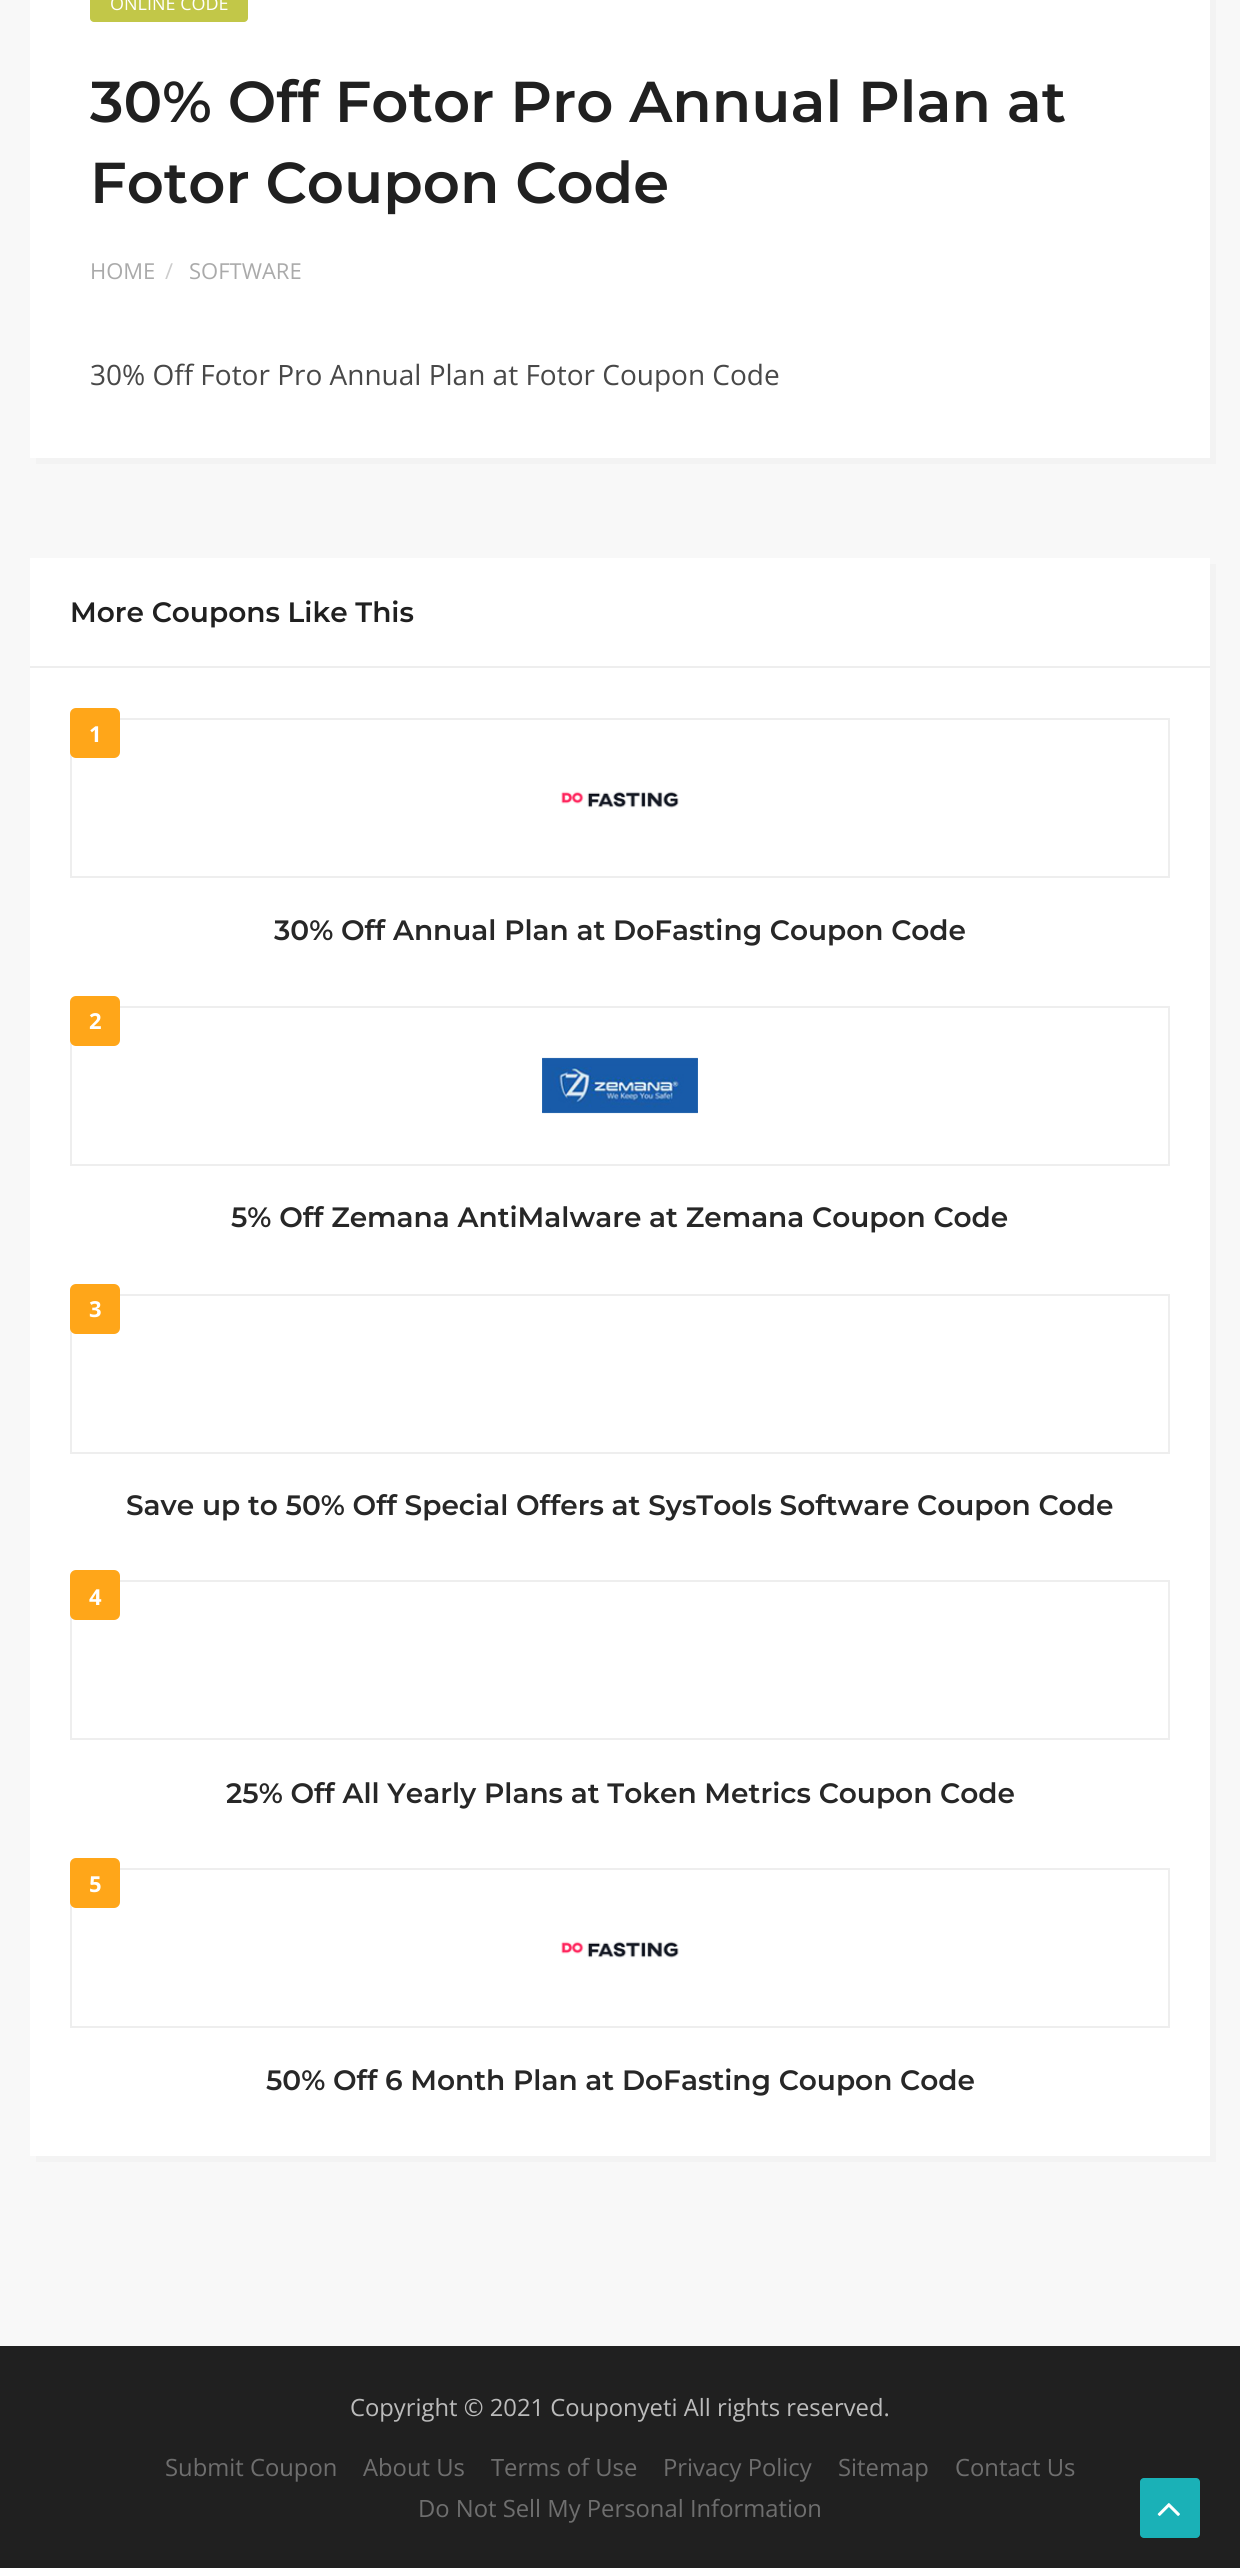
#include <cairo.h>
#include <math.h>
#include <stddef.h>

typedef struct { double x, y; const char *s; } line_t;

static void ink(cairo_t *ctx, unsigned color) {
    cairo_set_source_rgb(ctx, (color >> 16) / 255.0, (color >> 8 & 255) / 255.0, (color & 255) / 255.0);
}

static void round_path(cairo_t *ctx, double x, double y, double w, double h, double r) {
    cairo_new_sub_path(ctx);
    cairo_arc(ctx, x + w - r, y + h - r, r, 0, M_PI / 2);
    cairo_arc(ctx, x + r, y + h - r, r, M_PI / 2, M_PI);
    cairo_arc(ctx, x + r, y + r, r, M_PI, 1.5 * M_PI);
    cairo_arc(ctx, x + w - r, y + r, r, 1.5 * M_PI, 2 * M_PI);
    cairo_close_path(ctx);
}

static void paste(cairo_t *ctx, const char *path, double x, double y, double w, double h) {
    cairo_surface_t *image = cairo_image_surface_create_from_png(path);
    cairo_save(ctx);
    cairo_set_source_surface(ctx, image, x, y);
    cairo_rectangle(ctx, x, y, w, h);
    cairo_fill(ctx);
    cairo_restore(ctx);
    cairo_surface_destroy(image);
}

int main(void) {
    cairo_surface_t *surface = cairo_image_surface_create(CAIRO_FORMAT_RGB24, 1240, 2568);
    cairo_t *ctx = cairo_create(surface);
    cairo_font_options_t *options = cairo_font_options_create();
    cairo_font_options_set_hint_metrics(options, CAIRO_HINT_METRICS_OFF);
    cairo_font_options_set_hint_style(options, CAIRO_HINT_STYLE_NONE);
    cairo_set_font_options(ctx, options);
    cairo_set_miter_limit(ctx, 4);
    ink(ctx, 0xF8F8F8);
    cairo_paint(ctx);
    ink(ctx, 0xF3F3F3);
    cairo_new_path(ctx);
    cairo_move_to(ctx, 36, 458);
    cairo_line_to(ctx, 36, 464);
    cairo_line_to(ctx, 1216, 464);
    cairo_line_to(ctx, 1216, -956);
    cairo_line_to(ctx, 1210, -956);
    cairo_line_to(ctx, 1210, 458);
    cairo_close_path(ctx);
    cairo_fill(ctx);
    ink(ctx, 0xFFFFFF);
    cairo_rectangle(ctx, 30, 0, 1180, 458);
    cairo_fill(ctx);
    ink(ctx, 0xC2C748);
    round_path(ctx, 90, -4, 158, 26, 4);
    cairo_fill(ctx);
    cairo_select_font_face(ctx, "Open Sans", CAIRO_FONT_SLANT_NORMAL, CAIRO_FONT_WEIGHT_NORMAL);
    cairo_set_font_size(ctx, 18);
    ink(ctx, 0xFFFFFF);
    cairo_move_to(ctx, 110, 10);
    cairo_show_text(ctx, "ONLINE CODE");
    cairo_select_font_face(ctx, "Montserrat Thin", CAIRO_FONT_SLANT_NORMAL, CAIRO_FONT_WEIGHT_NORMAL);
    cairo_set_font_size(ctx, 57.6);
    ink(ctx, 0x202020);
    cairo_move_to(ctx, 90, 122);
    cairo_show_text(ctx, "30% Off Fotor Pro Annual Plan at");
    cairo_move_to(ctx, 90, 203);
    cairo_show_text(ctx, "Fotor Coupon Code");
    cairo_select_font_face(ctx, "Open Sans", CAIRO_FONT_SLANT_NORMAL, CAIRO_FONT_WEIGHT_NORMAL);
    cairo_set_font_size(ctx, 22);
    ink(ctx, 0xAAAAAA);
    cairo_move_to(ctx, 90, 279);
    cairo_show_text(ctx, "HOME");
    ink(ctx, 0xCCCCCC);
    cairo_move_to(ctx, 165, 279);
    cairo_show_text(ctx, "/");
    ink(ctx, 0xAAAAAA);
    cairo_move_to(ctx, 189, 279);
    cairo_show_text(ctx, "SOFTWARE");
    cairo_set_font_size(ctx, 28);
    ink(ctx, 0x484848);
    cairo_move_to(ctx, 90, 385);
    cairo_show_text(ctx, "30% Off Fotor Pro Annual Plan at Fotor Coupon Code");
    ink(ctx, 0xF3F3F3);
    cairo_new_path(ctx);
    cairo_move_to(ctx, 36, 2156);
    cairo_line_to(ctx, 36, 2162);
    cairo_line_to(ctx, 1216, 2162);
    cairo_line_to(ctx, 1216, 564);
    cairo_line_to(ctx, 1210, 564);
    cairo_line_to(ctx, 1210, 2156);
    cairo_close_path(ctx);
    cairo_fill(ctx);
    ink(ctx, 0xFFFFFF);
    cairo_rectangle(ctx, 30, 558, 1180, 1598);
    cairo_fill(ctx);
    ink(ctx, 0xEEEEEE);
    cairo_rectangle(ctx, 30, 666, 1180, 2);
    cairo_fill(ctx);
    cairo_select_font_face(ctx, "Montserrat Thin", CAIRO_FONT_SLANT_NORMAL, CAIRO_FONT_WEIGHT_NORMAL);
    ink(ctx, 0x202020);
    cairo_move_to(ctx, 70, 622);
    cairo_show_text(ctx, "More Coupons Like This");
    cairo_rectangle(ctx, 71, 719, 1098, 158);
    ink(ctx, 0xEEEEEE);
    cairo_stroke(ctx);
    ink(ctx, 0xFFA619);
    round_path(ctx, 70, 708, 50, 50, 6);
    cairo_fill(ctx);
    cairo_select_font_face(ctx, "Open Sans", CAIRO_FONT_SLANT_NORMAL, CAIRO_FONT_WEIGHT_BOLD);
    cairo_set_font_size(ctx, 22);
    ink(ctx, 0xFFFFFF);
    cairo_move_to(ctx, 89, 742);
    cairo_show_text(ctx, "1");
    paste(ctx, "media/1.png", 561, 791, 118, 17);
    cairo_select_font_face(ctx, "Montserrat Thin", CAIRO_FONT_SLANT_NORMAL, CAIRO_FONT_WEIGHT_NORMAL);
    cairo_set_font_size(ctx, 28);
    ink(ctx, 0x272727);
    cairo_move_to(ctx, 274, 940);
    cairo_show_text(ctx, "30% Off Annual Plan at DoFasting Coupon Code");
    cairo_rectangle(ctx, 71, 1007, 1098, 158);
    ink(ctx, 0xEEEEEE);
    cairo_stroke(ctx);
    ink(ctx, 0xFFA619);
    round_path(ctx, 70, 996, 50, 50, 6);
    cairo_fill(ctx);
    cairo_select_font_face(ctx, "Open Sans", CAIRO_FONT_SLANT_NORMAL, CAIRO_FONT_WEIGHT_BOLD);
    cairo_set_font_size(ctx, 22);
    ink(ctx, 0xFFFFFF);
    cairo_move_to(ctx, 89, 1029);
    cairo_show_text(ctx, "2");
    paste(ctx, "media/2.png", 542, 1057, 156, 57);
    cairo_select_font_face(ctx, "Montserrat Thin", CAIRO_FONT_SLANT_NORMAL, CAIRO_FONT_WEIGHT_NORMAL);
    cairo_set_font_size(ctx, 28);
    ink(ctx, 0x272727);
    cairo_move_to(ctx, 231, 1227);
    cairo_show_text(ctx, "5% Off Zemana AntiMalware at Zemana Coupon Code");
    cairo_rectangle(ctx, 71, 1295, 1098, 158);
    ink(ctx, 0xEEEEEE);
    cairo_stroke(ctx);
    ink(ctx, 0xFFA619);
    round_path(ctx, 70, 1284, 50, 50, 6);
    cairo_fill(ctx);
    cairo_select_font_face(ctx, "Open Sans", CAIRO_FONT_SLANT_NORMAL, CAIRO_FONT_WEIGHT_BOLD);
    cairo_set_font_size(ctx, 22);
    ink(ctx, 0xFFFFFF);
    cairo_move_to(ctx, 89, 1317);
    cairo_show_text(ctx, "3");
    cairo_select_font_face(ctx, "Montserrat Thin", CAIRO_FONT_SLANT_NORMAL, CAIRO_FONT_WEIGHT_NORMAL);
    cairo_set_font_size(ctx, 28);
    ink(ctx, 0x272727);
    cairo_move_to(ctx, 126, 1515);
    cairo_show_text(ctx, "Save up to 50% Off Special Offers at SysTools Software Coupon Code");
    cairo_rectangle(ctx, 71, 1581, 1098, 158);
    ink(ctx, 0xEEEEEE);
    cairo_stroke(ctx);
    ink(ctx, 0xFFA619);
    round_path(ctx, 70, 1570, 50, 50, 6);
    cairo_fill(ctx);
    cairo_select_font_face(ctx, "Open Sans", CAIRO_FONT_SLANT_NORMAL, CAIRO_FONT_WEIGHT_BOLD);
    cairo_set_font_size(ctx, 22);
    ink(ctx, 0xFFFFFF);
    cairo_move_to(ctx, 89, 1605);
    cairo_show_text(ctx, "4");
    cairo_select_font_face(ctx, "Montserrat Thin", CAIRO_FONT_SLANT_NORMAL, CAIRO_FONT_WEIGHT_NORMAL);
    cairo_set_font_size(ctx, 28);
    ink(ctx, 0x272727);
    cairo_move_to(ctx, 226, 1803);
    cairo_show_text(ctx, "25% Off All Yearly Plans at Token Metrics Coupon Code");
    cairo_rectangle(ctx, 71, 1869, 1098, 158);
    ink(ctx, 0xEEEEEE);
    cairo_stroke(ctx);
    ink(ctx, 0xFFA619);
    round_path(ctx, 70, 1858, 50, 50, 6);
    cairo_fill(ctx);
    cairo_select_font_face(ctx, "Open Sans", CAIRO_FONT_SLANT_NORMAL, CAIRO_FONT_WEIGHT_BOLD);
    cairo_set_font_size(ctx, 22);
    ink(ctx, 0xFFFFFF);
    cairo_move_to(ctx, 89, 1892);
    cairo_show_text(ctx, "5");
    paste(ctx, "media/3.png", 561, 1941, 118, 17);
    cairo_select_font_face(ctx, "Montserrat Thin", CAIRO_FONT_SLANT_NORMAL, CAIRO_FONT_WEIGHT_NORMAL);
    cairo_set_font_size(ctx, 28);
    ink(ctx, 0x272727);
    cairo_move_to(ctx, 266, 2090);
    cairo_show_text(ctx, "50% Off 6 Month Plan at DoFasting Coupon Code");
    ink(ctx, 0x202020);
    cairo_rectangle(ctx, 0, 2346, 1240, 222);
    cairo_fill(ctx);
    cairo_select_font_face(ctx, "Open Sans", CAIRO_FONT_SLANT_NORMAL, CAIRO_FONT_WEIGHT_NORMAL);
    cairo_set_font_size(ctx, 23.8);
    ink(ctx, 0xBBBBBB);
    cairo_move_to(ctx, 350, 2416);
    cairo_show_text(ctx, "Copyright © 2021 Couponyeti All rights reserved.");
    ink(ctx, 0x6E6E6E);
    {
        static const line_t items[] = {
            {165, 2476, "Submit Coupon"},
            {363, 2476, "About Us"},
            {491, 2476, "Terms of Use"},
            {663, 2476, "Privacy Policy"},
            {838, 2476, "Sitemap"},
            {955, 2476, "Contact Us"},
            {418, 2517, "Do Not Sell My Personal Information"},
        };
        for (size_t i = 0; i < sizeof items / sizeof *items; i++) {
            cairo_move_to(ctx, items[i].x, items[i].y);
            cairo_show_text(ctx, items[i].s);
        }
    }
    ink(ctx, 0x1AB1B7);
    round_path(ctx, 1140, 2478, 60, 60, 4);
    cairo_fill(ctx);
    paste(ctx, "media/4.png", 1157, 2503, 23, 13);
    cairo_surface_write_to_png(surface, "image.png");
    cairo_font_options_destroy(options);
    cairo_destroy(ctx);
    cairo_surface_destroy(surface);
    return 0;
}
